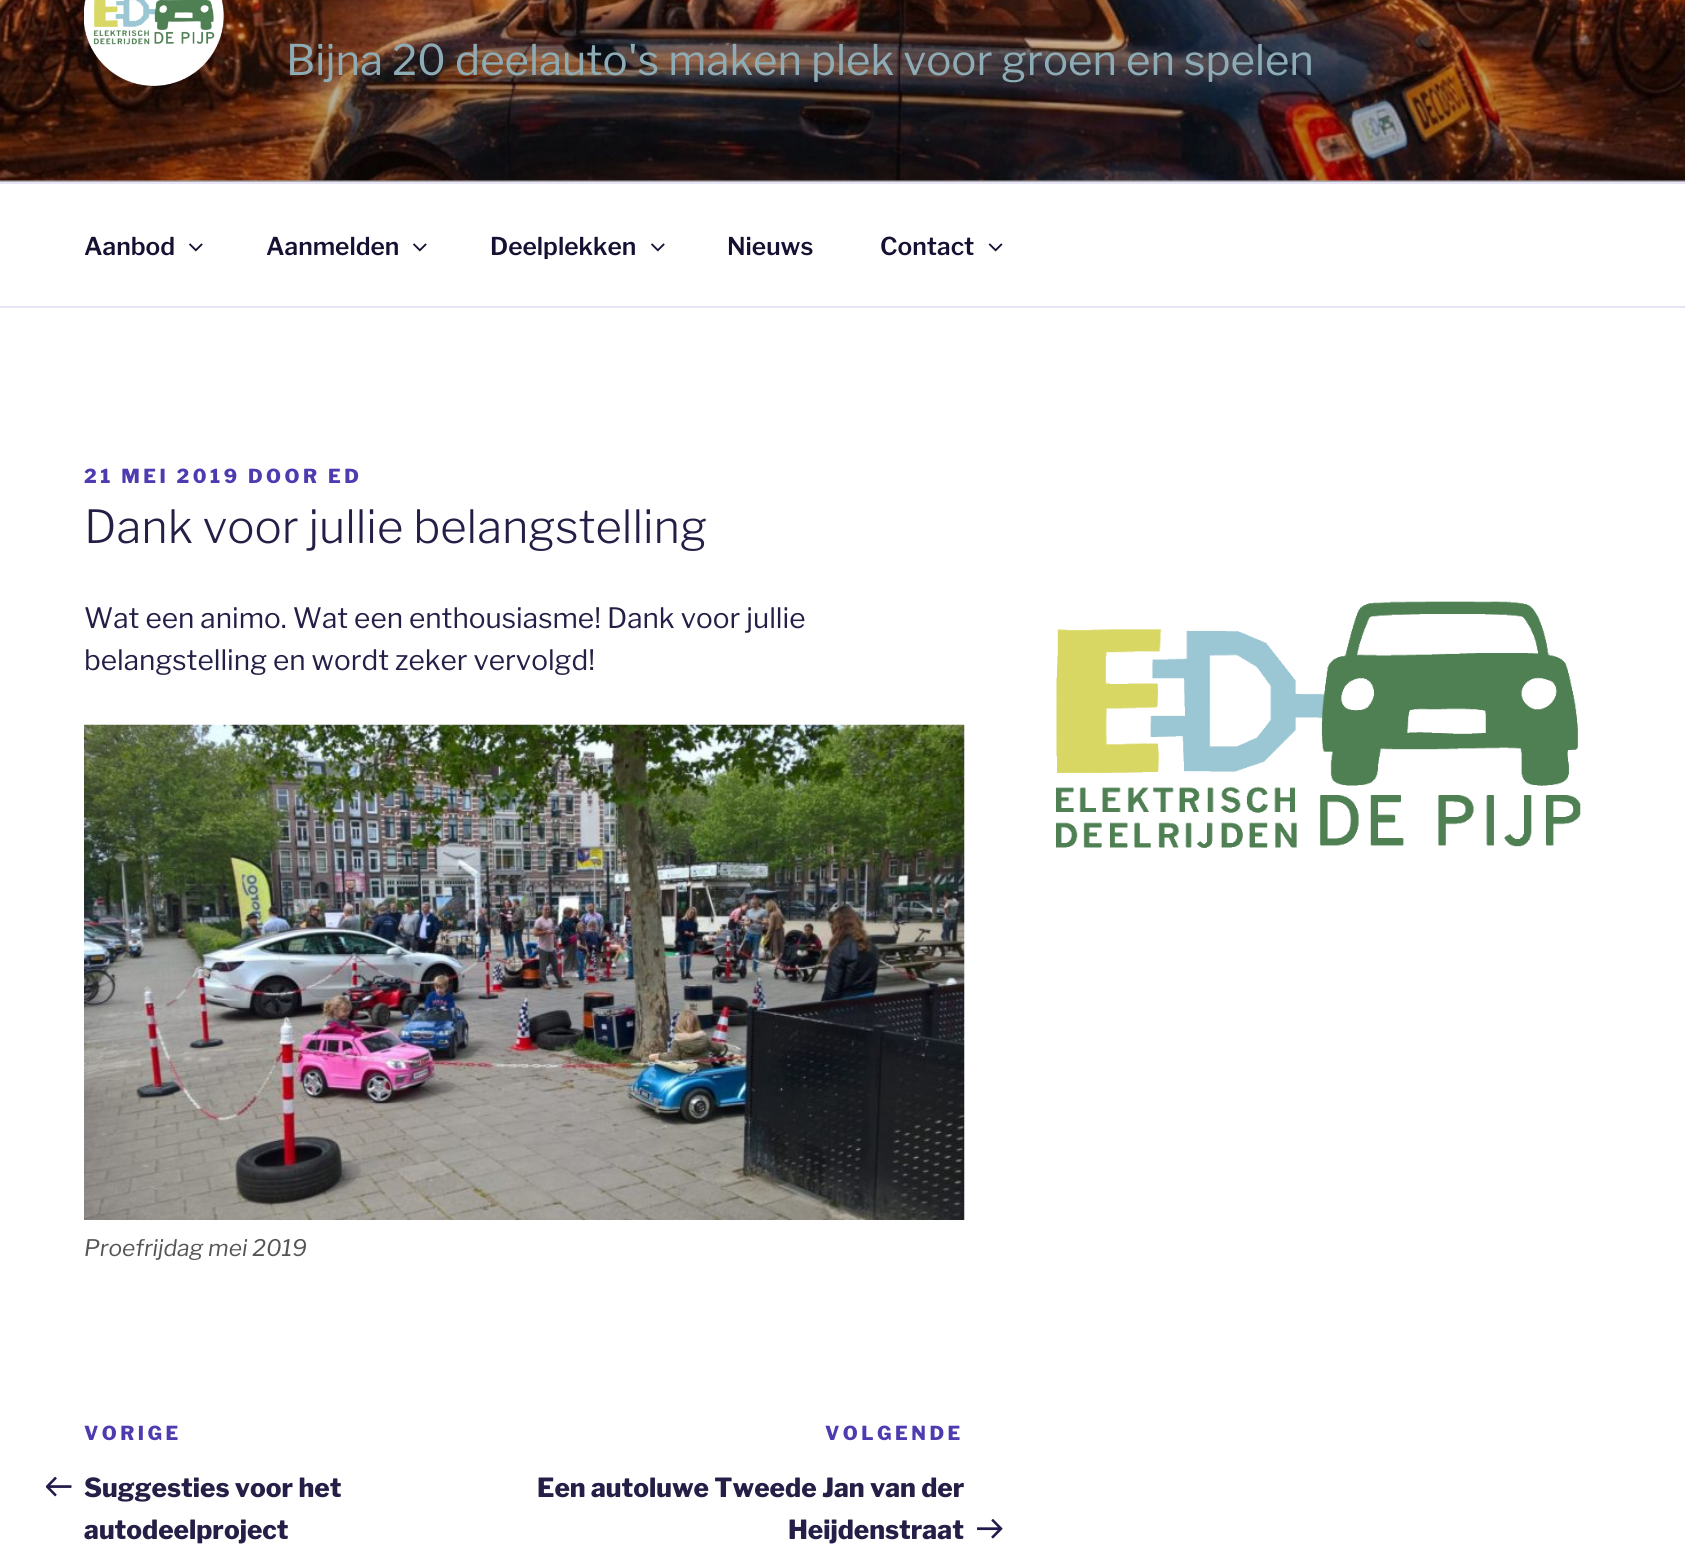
#include <cairo.h>
#include <math.h>
#include <stddef.h>


static void ink(cairo_t *ctx, unsigned color) {
    cairo_set_source_rgb(ctx, (color >> 16) / 255.0, (color >> 8 & 255) / 255.0, (color & 255) / 255.0);
}

static void write_spaced(cairo_t *ctx, double x, double y, const char *s, double letter, double word) {
    cairo_move_to(ctx, x, y);
    while (*s) {
        char ch[5] = {0};
        int n = 0;
        do ch[n++] = *s++; while ((*s & 0xC0) == 0x80);
        cairo_show_text(ctx, ch);
        cairo_rel_move_to(ctx, letter + word * (*ch == ' '), 0);
    }
}

static void paste(cairo_t *ctx, const char *path, double x, double y, double w, double h) {
    cairo_surface_t *image = cairo_image_surface_create_from_png(path);
    cairo_save(ctx);
    cairo_set_source_surface(ctx, image, x, y);
    cairo_rectangle(ctx, x, y, w, h);
    cairo_fill(ctx);
    cairo_restore(ctx);
    cairo_surface_destroy(image);
}

int main(void) {
    cairo_surface_t *surface = cairo_image_surface_create(CAIRO_FORMAT_RGB24, 1685, 1546);
    cairo_t *ctx = cairo_create(surface);
    cairo_font_options_t *options = cairo_font_options_create();
    cairo_font_options_set_hint_metrics(options, CAIRO_HINT_METRICS_OFF);
    cairo_font_options_set_hint_style(options, CAIRO_HINT_STYLE_NONE);
    cairo_set_font_options(ctx, options);
    cairo_set_miter_limit(ctx, 4);
    cairo_pattern_t *gradient;
    ink(ctx, 0xFFFFFF);
    cairo_paint(ctx);
    ink(ctx, 0xF8F7FC);
    cairo_rectangle(ctx, 0, 180, 1685, 2);
    cairo_fill(ctx);
    paste(ctx, "media/1.png", 0, 0, 1685, 181);
    gradient = cairo_pattern_create_linear(843, -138, 843, 182);
    cairo_pattern_add_color_stop_rgba(gradient, 0, 0, 0, 0, 0);
    cairo_pattern_add_color_stop_rgba(gradient, 0.75, 0, 0, 0, 0.3);
    cairo_pattern_add_color_stop_rgba(gradient, 1, 0, 0, 0, 0.3);
    cairo_set_source(ctx, gradient);
    cairo_pattern_destroy(gradient);
    cairo_rectangle(ctx, 0, 0, 1685, 182);
    cairo_fill(ctx);
    paste(ctx, "media/2.png", 84, 0, 140, 86);
    cairo_select_font_face(ctx, "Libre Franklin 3 Thin", CAIRO_FONT_SLANT_NORMAL, CAIRO_FONT_WEIGHT_NORMAL);
    cairo_set_font_size(ctx, 42);
    ink(ctx, 0x8DACB5);
    cairo_move_to(ctx, 286, 75);
    cairo_show_text(ctx, "Bijna 20 deelauto's maken plek voor groen en spelen");
    ink(ctx, 0xE7E4F6);
    cairo_rectangle(ctx, 0, 182, 1685, 2);
    cairo_fill(ctx);
    cairo_rectangle(ctx, 0, 306, 1685, 2);
    cairo_fill(ctx);
    cairo_select_font_face(ctx, "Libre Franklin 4 Thin", CAIRO_FONT_SLANT_NORMAL, CAIRO_FONT_WEIGHT_NORMAL);
    cairo_set_font_size(ctx, 24.5);
    ink(ctx, 0x161132);
    cairo_move_to(ctx, 84, 255);
    cairo_show_text(ctx, "Aanbod");
    paste(ctx, "media/3.png", 189, 243, 14, 9);
    cairo_move_to(ctx, 266, 255);
    cairo_show_text(ctx, "Aanmelden");
    paste(ctx, "media/3.png", 413, 243, 14, 9);
    cairo_move_to(ctx, 490, 255);
    cairo_show_text(ctx, "Deelplekken");
    paste(ctx, "media/3.png", 651, 243, 14, 9);
    cairo_move_to(ctx, 727, 255);
    cairo_show_text(ctx, "Nieuws");
    cairo_move_to(ctx, 880, 255);
    cairo_show_text(ctx, "Contact");
    paste(ctx, "media/4.png", 988, 243, 15, 9);
    cairo_select_font_face(ctx, "Libre Franklin Thin", CAIRO_FONT_SLANT_NORMAL, CAIRO_FONT_WEIGHT_NORMAL);
    cairo_set_font_size(ctx, 19.25);
    ink(ctx, 0x4E3BB0);
    write_spaced(ctx, 84, 483, "21 MEI 2019 DOOR ED", 3.5, 0);
    cairo_select_font_face(ctx, "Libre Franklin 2 Thin", CAIRO_FONT_SLANT_NORMAL, CAIRO_FONT_WEIGHT_NORMAL);
    cairo_set_font_size(ctx, 45.5);
    ink(ctx, 0x251F47);
    cairo_move_to(ctx, 84, 543);
    cairo_show_text(ctx, "Dank voor jullie belangstelling");
    cairo_select_font_face(ctx, "Libre Franklin 3 Thin", CAIRO_FONT_SLANT_NORMAL, CAIRO_FONT_WEIGHT_NORMAL);
    cairo_set_font_size(ctx, 28);
    cairo_move_to(ctx, 84, 628);
    cairo_show_text(ctx, "Wat een animo. Wat een enthousiasme! Dank voor jullie");
    cairo_move_to(ctx, 84, 670);
    cairo_show_text(ctx, "belangstelling en wordt zeker vervolgd!");
    paste(ctx, "media/5.png", 84, 724, 881, 496);
    cairo_select_font_face(ctx, "Libre Franklin Thin", CAIRO_FONT_SLANT_ITALIC, CAIRO_FONT_WEIGHT_NORMAL);
    cairo_set_font_size(ctx, 22.75);
    ink(ctx, 0x555555);
    cairo_move_to(ctx, 84, 1256);
    cairo_show_text(ctx, "Proefrijdag mei 2019");
    cairo_select_font_face(ctx, "Libre Franklin Thin", CAIRO_FONT_SLANT_NORMAL, CAIRO_FONT_WEIGHT_NORMAL);
    cairo_set_font_size(ctx, 19.25);
    ink(ctx, 0x4E3BB0);
    write_spaced(ctx, 84, 1440, "VORIGE", 3.5, 0);
    paste(ctx, "media/6.png", 46, 1476, 26, 21);
    cairo_set_font_size(ctx, 26.25);
    ink(ctx, 0x251F47);
    cairo_move_to(ctx, 84, 1497);
    cairo_show_text(ctx, "Suggesties voor het");
    cairo_move_to(ctx, 84, 1539);
    cairo_show_text(ctx, "autodeelproject");
    cairo_set_font_size(ctx, 19.25);
    ink(ctx, 0x4E3BB0);
    write_spaced(ctx, 825, 1440, "VOLGENDE", 3.5, 0);
    cairo_set_font_size(ctx, 26.25);
    ink(ctx, 0x251F47);
    cairo_move_to(ctx, 537, 1497);
    cairo_show_text(ctx, "Een autoluwe Tweede Jan van der");
    cairo_move_to(ctx, 788, 1539);
    cairo_show_text(ctx, "Heijdenstraat");
    paste(ctx, "media/7.png", 977, 1519, 26, 20);
    paste(ctx, "media/8.png", 1056, 601, 525, 247);
    cairo_surface_write_to_png(surface, "image.png");
    cairo_font_options_destroy(options);
    cairo_destroy(ctx);
    cairo_surface_destroy(surface);
    return 0;
}
